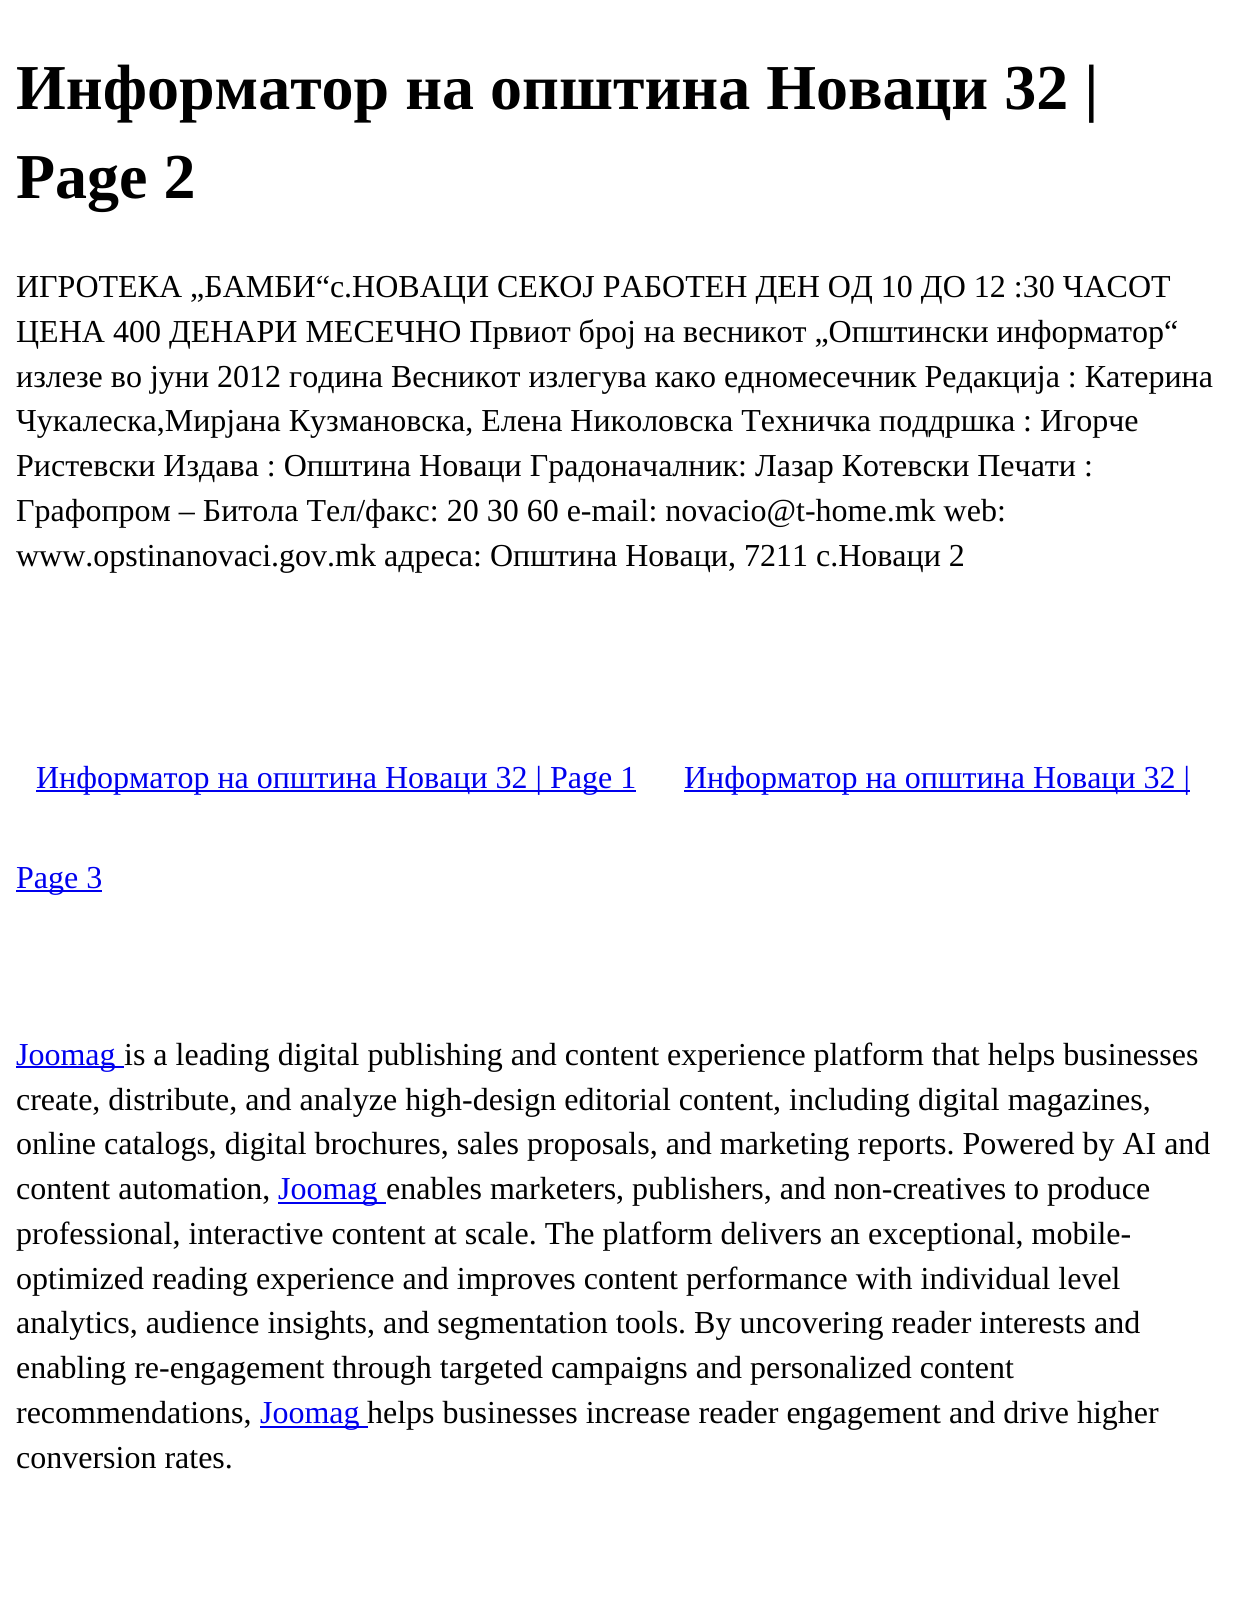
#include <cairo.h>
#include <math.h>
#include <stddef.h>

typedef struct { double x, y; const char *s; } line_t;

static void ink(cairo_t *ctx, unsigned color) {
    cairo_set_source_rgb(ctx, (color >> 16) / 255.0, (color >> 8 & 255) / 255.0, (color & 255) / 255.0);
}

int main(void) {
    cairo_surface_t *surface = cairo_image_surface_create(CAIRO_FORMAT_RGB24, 1251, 1603);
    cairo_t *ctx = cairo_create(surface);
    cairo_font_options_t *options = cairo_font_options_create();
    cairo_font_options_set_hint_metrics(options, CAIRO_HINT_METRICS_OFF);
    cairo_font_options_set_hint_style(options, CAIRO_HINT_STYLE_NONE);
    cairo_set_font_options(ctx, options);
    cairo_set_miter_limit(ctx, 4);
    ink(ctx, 0xFFFFFF);
    cairo_paint(ctx);
    cairo_select_font_face(ctx, "Liberation Serif", CAIRO_FONT_SLANT_NORMAL, CAIRO_FONT_WEIGHT_BOLD);
    cairo_set_font_size(ctx, 64);
    ink(ctx, 0x000000);
    cairo_move_to(ctx, 16, 109);
    cairo_show_text(ctx, "Информатор на општина Новаци 32 |");
    cairo_move_to(ctx, 16, 198);
    cairo_show_text(ctx, "Page 2");
    cairo_select_font_face(ctx, "Liberation Serif", CAIRO_FONT_SLANT_NORMAL, CAIRO_FONT_WEIGHT_NORMAL);
    cairo_set_font_size(ctx, 32);
    {
        static const line_t items[] = {
            {16, 297, "ИГРОТЕКА „БАМБИ“с.НОВАЦИ СЕКОЈ РАБОТЕН ДЕН ОД 10 ДО 12 :30 ЧАСОТ"},
            {16, 342, "ЦЕНА 400 ДЕНАРИ МЕСЕЧНО Првиот број на весникот „Општински информатор“"},
            {16, 387, "излезе во јуни 2012 година Весникот излегува како едномесечник Редакција : Катерина"},
            {16, 431, "Чукалеска,Мирјана Кузмановска, Елена Николовска Техничка поддршка : Игорче"},
            {16, 476, "Ристевски Издава : Општина Новаци Градоначалник: Лазар Котевски Печати :"},
            {16, 521, "Графопром – Битола Тел/фaкс: 20 30 60 e-mail: novacio@t-home.mk web:"},
            {16, 566, "www.opstinanovaci.gov.mk адреса: Општина Новаци, 7211 с.Новаци 2"},
        };
        for (size_t i = 0; i < sizeof items / sizeof *items; i++) {
            cairo_move_to(ctx, items[i].x, items[i].y);
            cairo_show_text(ctx, items[i].s);
        }
    }
    ink(ctx, 0x0000EE);
    cairo_rectangle(ctx, 36, 790, 600, 2);
    cairo_fill(ctx);
    cairo_move_to(ctx, 36, 788);
    cairo_show_text(ctx, "Информатор на општина Новаци 32 | Page 1");
    cairo_rectangle(ctx, 684, 790, 506, 2);
    cairo_fill(ctx);
    cairo_move_to(ctx, 684, 788);
    cairo_show_text(ctx, "Информатор на општина Новаци 32 |");
    cairo_rectangle(ctx, 16, 890, 86, 2);
    cairo_fill(ctx);
    cairo_move_to(ctx, 16, 888);
    cairo_show_text(ctx, "Page 3");
    cairo_rectangle(ctx, 16, 1066, 108, 2);
    cairo_fill(ctx);
    cairo_move_to(ctx, 16, 1065);
    cairo_show_text(ctx, "Joomag");
    ink(ctx, 0x000000);
    {
        static const line_t items[] = {
            {124, 1065, "is a leading digital publishing and content experience platform that helps businesses"},
            {16, 1110, "create, distribute, and analyze high-design editorial content, including digital magazines,"},
            {16, 1154, "online catalogs, digital brochures, sales proposals, and marketing reports. Powered by AI and"},
            {16, 1199, "content automation,"},
        };
        for (size_t i = 0; i < sizeof items / sizeof *items; i++) {
            cairo_move_to(ctx, items[i].x, items[i].y);
            cairo_show_text(ctx, items[i].s);
        }
    }
    ink(ctx, 0x0000EE);
    cairo_rectangle(ctx, 278, 1202, 108, 2);
    cairo_fill(ctx);
    cairo_move_to(ctx, 278, 1199);
    cairo_show_text(ctx, "Joomag");
    ink(ctx, 0x000000);
    {
        static const line_t items[] = {
            {386, 1199, "enables marketers, publishers, and non-creatives to produce"},
            {16, 1244, "professional, interactive content at scale. The platform delivers an exceptional, mobile-"},
            {16, 1289, "optimized reading experience and improves content performance with individual level"},
            {16, 1333, "analytics, audience insights, and segmentation tools. By uncovering reader interests and"},
            {16, 1378, "enabling re-engagement through targeted campaigns and personalized content"},
            {16, 1423, "recommendations,"},
        };
        for (size_t i = 0; i < sizeof items / sizeof *items; i++) {
            cairo_move_to(ctx, items[i].x, items[i].y);
            cairo_show_text(ctx, items[i].s);
        }
    }
    ink(ctx, 0x0000EE);
    cairo_rectangle(ctx, 260, 1426, 108, 2);
    cairo_fill(ctx);
    cairo_move_to(ctx, 260, 1423);
    cairo_show_text(ctx, "Joomag");
    ink(ctx, 0x000000);
    cairo_move_to(ctx, 367, 1423);
    cairo_show_text(ctx, "helps businesses increase reader engagement and drive higher");
    cairo_move_to(ctx, 16, 1468);
    cairo_show_text(ctx, "conversion rates.");
    cairo_surface_write_to_png(surface, "image.png");
    cairo_font_options_destroy(options);
    cairo_destroy(ctx);
    cairo_surface_destroy(surface);
    return 0;
}
